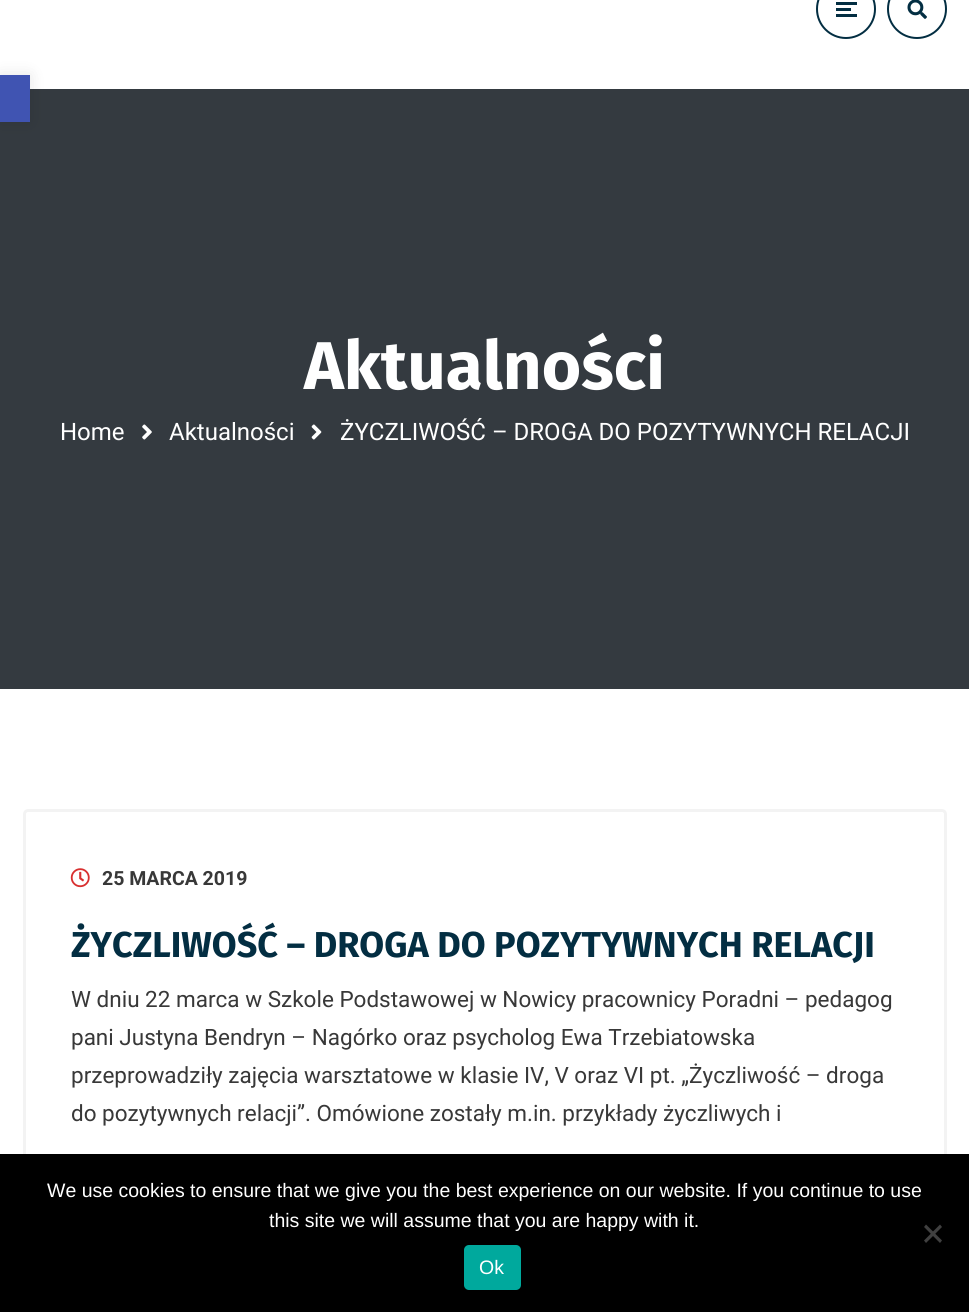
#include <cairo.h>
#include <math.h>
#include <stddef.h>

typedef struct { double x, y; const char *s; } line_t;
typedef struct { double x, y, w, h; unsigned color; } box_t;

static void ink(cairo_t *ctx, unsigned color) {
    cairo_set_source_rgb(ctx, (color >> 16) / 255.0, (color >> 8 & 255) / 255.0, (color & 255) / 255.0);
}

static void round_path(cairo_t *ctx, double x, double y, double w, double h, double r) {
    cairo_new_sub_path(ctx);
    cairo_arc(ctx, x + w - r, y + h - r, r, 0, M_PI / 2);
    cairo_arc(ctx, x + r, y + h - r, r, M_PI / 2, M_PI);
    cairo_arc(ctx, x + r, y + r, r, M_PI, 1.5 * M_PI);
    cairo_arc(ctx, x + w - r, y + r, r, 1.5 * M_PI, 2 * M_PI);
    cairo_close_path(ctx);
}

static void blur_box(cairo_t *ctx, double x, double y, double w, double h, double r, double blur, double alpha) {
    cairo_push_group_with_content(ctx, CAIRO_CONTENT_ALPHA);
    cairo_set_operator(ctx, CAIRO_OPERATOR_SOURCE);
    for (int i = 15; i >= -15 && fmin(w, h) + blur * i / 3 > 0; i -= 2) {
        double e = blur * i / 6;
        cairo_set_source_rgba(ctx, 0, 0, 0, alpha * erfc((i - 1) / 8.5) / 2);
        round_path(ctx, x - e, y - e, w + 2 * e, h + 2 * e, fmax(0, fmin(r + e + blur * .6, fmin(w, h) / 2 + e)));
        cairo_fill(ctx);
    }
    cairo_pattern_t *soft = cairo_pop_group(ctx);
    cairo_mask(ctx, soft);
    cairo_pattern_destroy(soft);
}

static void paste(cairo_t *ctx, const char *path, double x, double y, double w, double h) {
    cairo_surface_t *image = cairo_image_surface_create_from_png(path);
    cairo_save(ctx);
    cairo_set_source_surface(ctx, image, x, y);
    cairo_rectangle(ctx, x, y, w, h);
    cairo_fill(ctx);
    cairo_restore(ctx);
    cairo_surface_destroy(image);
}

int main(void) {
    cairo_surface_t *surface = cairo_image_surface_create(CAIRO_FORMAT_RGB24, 969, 1312);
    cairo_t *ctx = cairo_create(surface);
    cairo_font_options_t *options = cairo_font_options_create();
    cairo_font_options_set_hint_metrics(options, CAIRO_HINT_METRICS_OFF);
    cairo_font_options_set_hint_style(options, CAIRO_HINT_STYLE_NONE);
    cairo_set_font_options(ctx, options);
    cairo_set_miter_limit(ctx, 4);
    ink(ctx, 0xFFFFFF);
    cairo_paint(ctx);
    ink(ctx, 0x343A40);
    cairo_rectangle(ctx, 0, 89, 969, 600);
    cairo_fill(ctx);
    ink(ctx, 0x000000);
    blur_box(ctx, 0, 75, 30, 47, 0, 7.5, 0.1);
    ink(ctx, 0x4054B2);
    cairo_rectangle(ctx, 0, 75, 30, 47);
    cairo_fill(ctx);
    cairo_arc(ctx, 846, 9, 29, 0, 2 * M_PI);
    ink(ctx, 0x032E42);
    cairo_stroke(ctx);
    {
        static const box_t items[] = {
            {836, 2, 21, 3, 0x032E42},
            {836, 8, 15, 3, 0x032E42},
            {836, 14, 21, 3, 0x032E42},
        };
        for (size_t i = 0; i < sizeof items / sizeof *items; i++) {
            ink(ctx, items[i].color);
            cairo_rectangle(ctx, items[i].x, items[i].y, items[i].w, items[i].h);
            cairo_fill(ctx);
        }
    }
    cairo_arc(ctx, 917, 9, 29, 0, 2 * M_PI);
    cairo_stroke(ctx);
    paste(ctx, "media/1.png", 907, 0, 20, 19);
    cairo_select_font_face(ctx, "Fira Sans", CAIRO_FONT_SLANT_NORMAL, CAIRO_FONT_WEIGHT_BOLD);
    cairo_set_font_size(ctx, 67.5);
    ink(ctx, 0xFFFFFF);
    cairo_move_to(ctx, 304, 389);
    cairo_show_text(ctx, "Aktualności");
    cairo_select_font_face(ctx, "Roboto", CAIRO_FONT_SLANT_NORMAL, CAIRO_FONT_WEIGHT_NORMAL);
    cairo_set_font_size(ctx, 24);
    cairo_move_to(ctx, 60, 440);
    cairo_show_text(ctx, "Home");
    paste(ctx, "media/2.png", 142, 424, 10, 16);
    cairo_move_to(ctx, 169, 440);
    cairo_show_text(ctx, "Aktualności");
    paste(ctx, "media/3.png", 311, 424, 11, 16);
    cairo_move_to(ctx, 340, 440);
    cairo_show_text(ctx, "ŻYCZLIWOŚĆ – DROGA DO POZYTYWNYCH RELACJI");
    round_path(ctx, 24.5, 810.5, 921, 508, 3.5);
    ink(ctx, 0xF3F3F3);
    cairo_set_line_width(ctx, 3);
    cairo_stroke(ctx);
    paste(ctx, "media/4.png", 70, 868, 20, 20);
    cairo_select_font_face(ctx, "Roboto", CAIRO_FONT_SLANT_NORMAL, CAIRO_FONT_WEIGHT_BOLD);
    cairo_set_font_size(ctx, 19.5);
    ink(ctx, 0x383838);
    cairo_move_to(ctx, 102, 885);
    cairo_show_text(ctx, "25 MARCA 2019");
    cairo_select_font_face(ctx, "Fira Sans", CAIRO_FONT_SLANT_NORMAL, CAIRO_FONT_WEIGHT_BOLD);
    cairo_set_font_size(ctx, 36);
    ink(ctx, 0x032E42);
    cairo_move_to(ctx, 71, 957);
    cairo_show_text(ctx, "ŻYCZLIWOŚĆ – DROGA DO POZYTYWNYCH RELACJI");
    cairo_select_font_face(ctx, "Roboto", CAIRO_FONT_SLANT_NORMAL, CAIRO_FONT_WEIGHT_NORMAL);
    cairo_set_font_size(ctx, 22.5);
    ink(ctx, 0x383838);
    {
        static const line_t items[] = {
            {71, 1007, "W dniu 22 marca w Szkole Podstawowej w Nowicy pracownicy Poradni – pedagog"},
            {71, 1045, "pani Justyna Bendryn – Nagórko oraz psycholog Ewa Trzebiatowska"},
            {71, 1083, "przeprowadziły zajęcia warsztatowe w klasie IV, V oraz VI pt. „Życzliwość – droga"},
            {71, 1121, "do pozytywnych relacji”. Omówione zostały m.in. przykłady życzliwych i"},
        };
        for (size_t i = 0; i < sizeof items / sizeof *items; i++) {
            cairo_move_to(ctx, items[i].x, items[i].y);
            cairo_show_text(ctx, items[i].s);
        }
    }
    ink(ctx, 0x000000);
    cairo_rectangle(ctx, 0, 1154, 969, 158);
    cairo_fill(ctx);
    cairo_select_font_face(ctx, "Liberation Sans", CAIRO_FONT_SLANT_NORMAL, CAIRO_FONT_WEIGHT_NORMAL);
    cairo_set_font_size(ctx, 19.5);
    ink(ctx, 0xFFFFFF);
    cairo_move_to(ctx, 47, 1197);
    cairo_show_text(ctx, "We use cookies to ensure that we give you the best experience on our website. If you continue to use");
    cairo_move_to(ctx, 269, 1227);
    cairo_show_text(ctx, "this site we will assume that you are happy with it.");
    ink(ctx, 0x404040);
    cairo_new_path(ctx);
    cairo_move_to(ctx, 940, 1224.5);
    cairo_line_to(ctx, 942, 1227);
    cairo_line_to(ctx, 926, 1243);
    cairo_line_to(ctx, 924, 1240.5);
    cairo_close_path(ctx);
    cairo_fill(ctx);
    cairo_new_path(ctx);
    cairo_move_to(ctx, 924, 1227);
    cairo_line_to(ctx, 926, 1224.5);
    cairo_line_to(ctx, 942, 1240.5);
    cairo_line_to(ctx, 940, 1243);
    cairo_close_path(ctx);
    cairo_fill(ctx);
    ink(ctx, 0x00A99D);
    round_path(ctx, 464, 1245, 57, 45, 5);
    cairo_fill(ctx);
    ink(ctx, 0xFFFFFF);
    cairo_move_to(ctx, 479, 1274);
    cairo_show_text(ctx, "Ok");
    cairo_surface_write_to_png(surface, "image.png");
    cairo_font_options_destroy(options);
    cairo_destroy(ctx);
    cairo_surface_destroy(surface);
    return 0;
}
